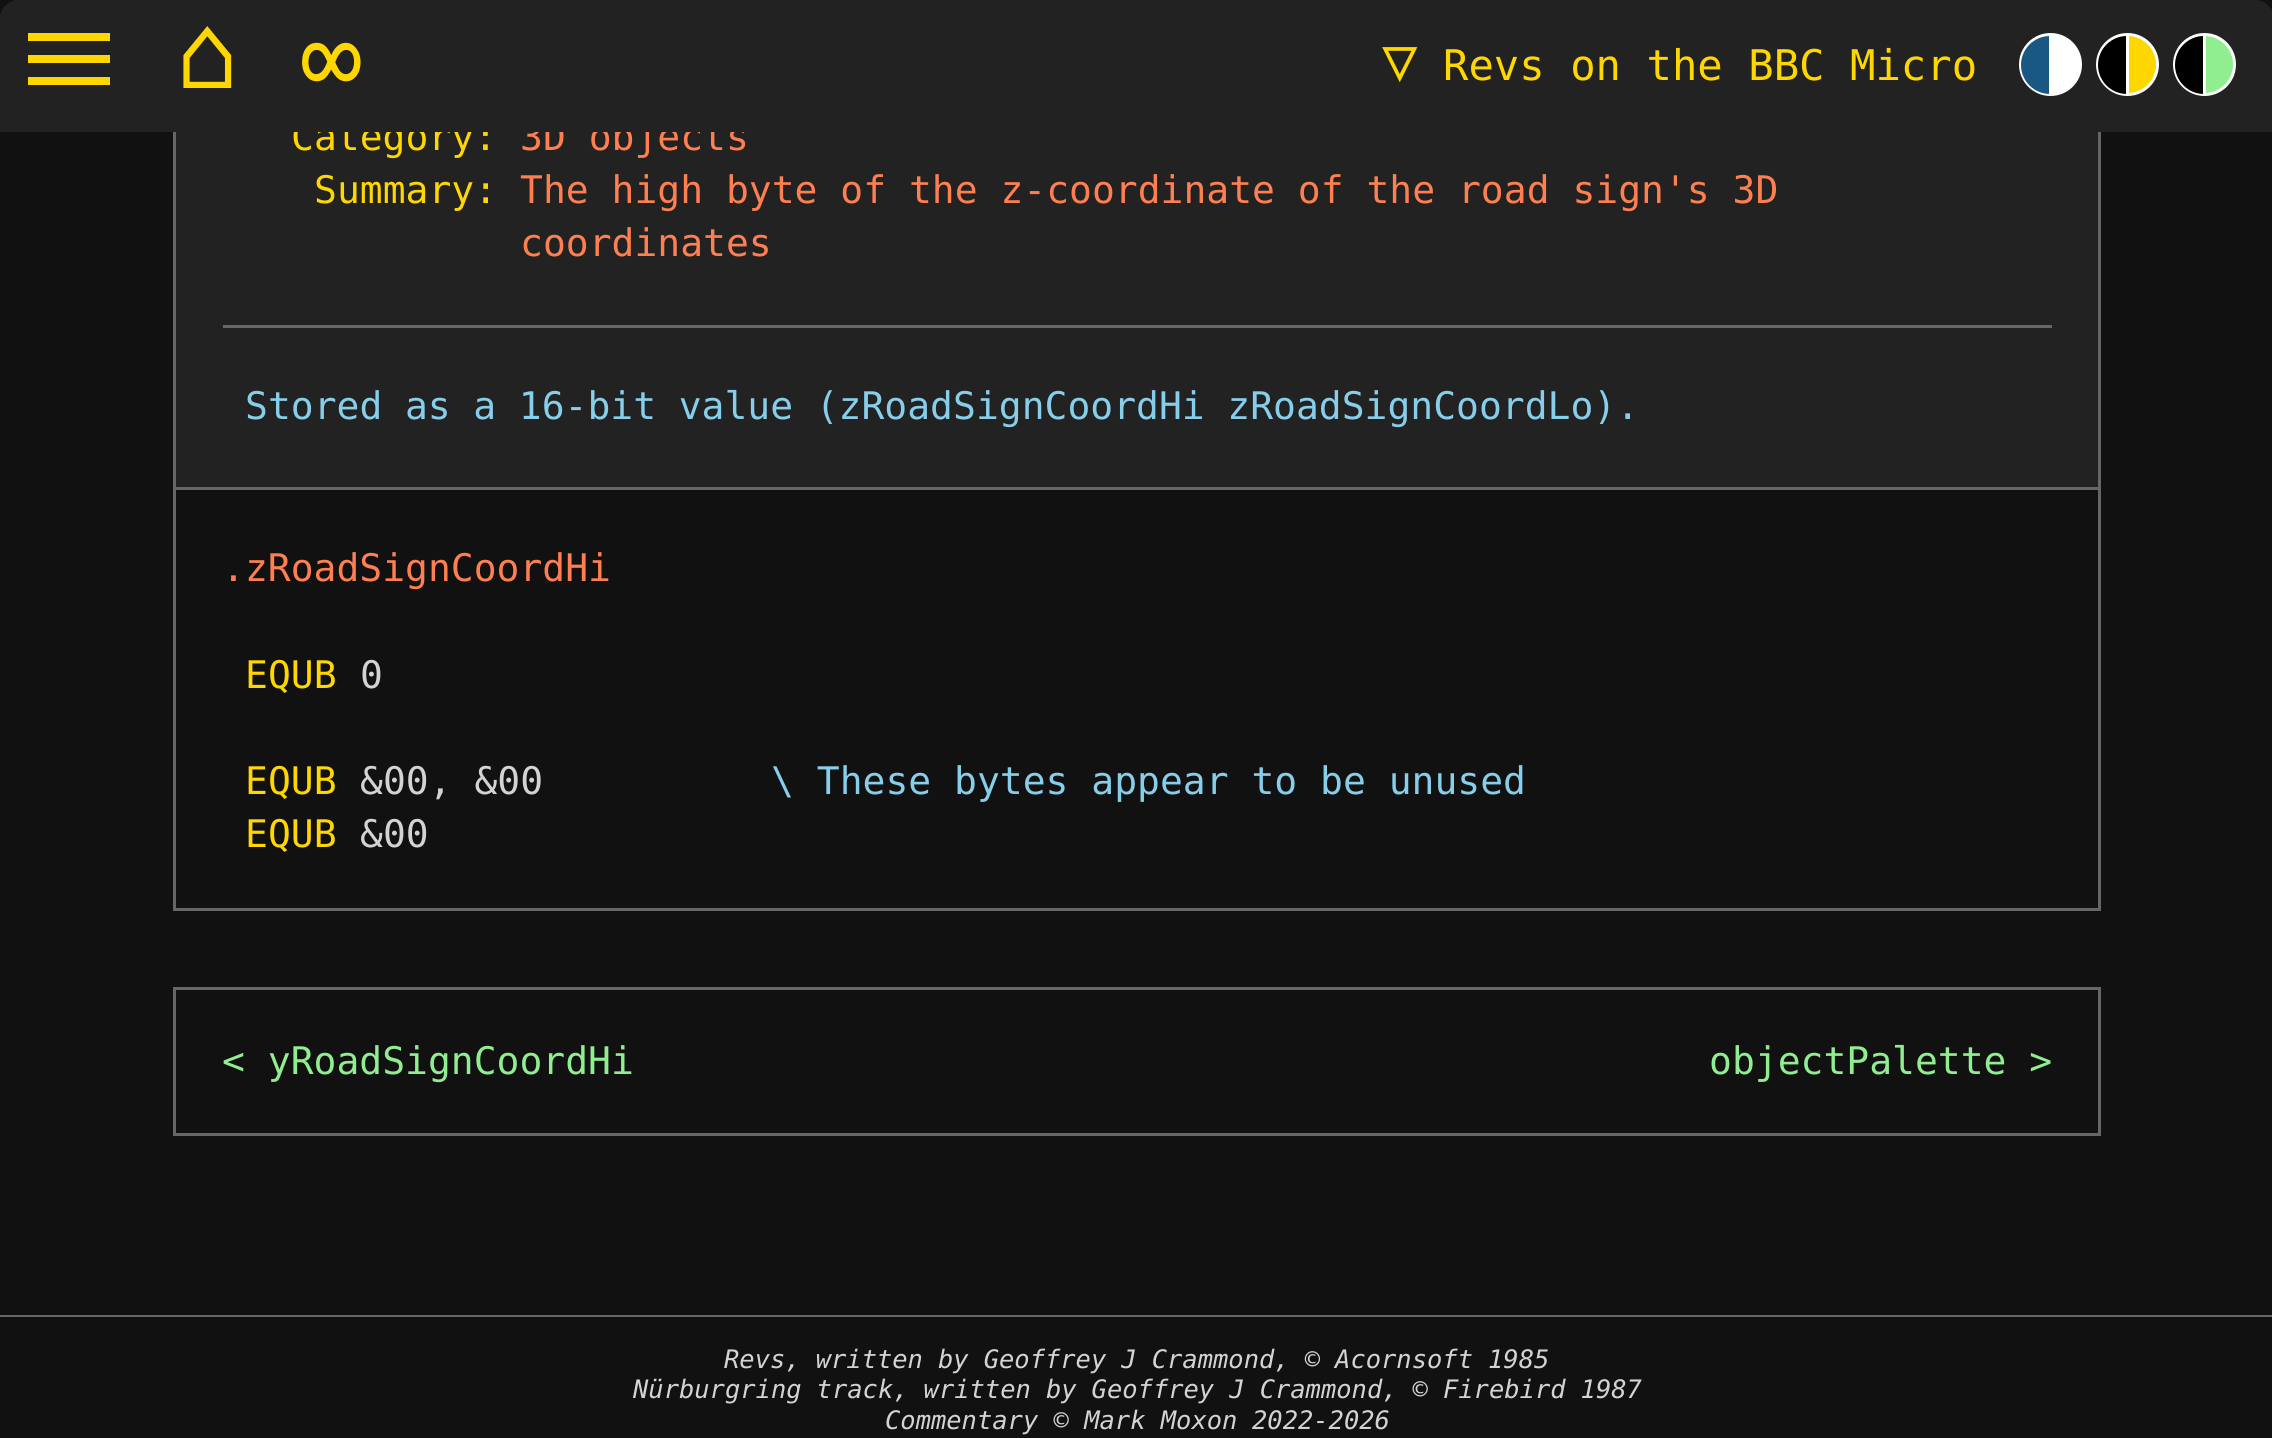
#include <cairo.h>
#include <math.h>
#include <stddef.h>

typedef struct { double x, y, w, h; unsigned color; } box_t;

static void ink(cairo_t *ctx, unsigned color) {
    cairo_set_source_rgb(ctx, (color >> 16) / 255.0, (color >> 8 & 255) / 255.0, (color & 255) / 255.0);
}

static void write_spaced(cairo_t *ctx, double x, double y, const char *s, double letter, double word) {
    cairo_move_to(ctx, x, y);
    while (*s) {
        char ch[5] = {0};
        int n = 0;
        do ch[n++] = *s++; while ((*s & 0xC0) == 0x80);
        cairo_show_text(ctx, ch);
        cairo_rel_move_to(ctx, letter + word * (*ch == ' '), 0);
    }
}

int main(void) {
    cairo_surface_t *surface = cairo_image_surface_create(CAIRO_FORMAT_RGB24, 2272, 1438);
    cairo_t *ctx = cairo_create(surface);
    cairo_font_options_t *options = cairo_font_options_create();
    cairo_font_options_set_hint_metrics(options, CAIRO_HINT_METRICS_OFF);
    cairo_font_options_set_hint_style(options, CAIRO_HINT_STYLE_NONE);
    cairo_set_font_options(ctx, options);
    cairo_set_miter_limit(ctx, 4);
    ink(ctx, 0x111111);
    cairo_paint(ctx);
    ink(ctx, 0x222222);
    cairo_rectangle(ctx, 176, 132, 1922, 355);
    cairo_fill(ctx);
    cairo_select_font_face(ctx, "DejaVu Sans Mono", CAIRO_FONT_SLANT_NORMAL, CAIRO_FONT_WEIGHT_NORMAL);
    cairo_set_font_size(ctx, 38);
    ink(ctx, 0xFFD700);
    cairo_move_to(ctx, 291, 150);
    cairo_show_text(ctx, "Category:");
    ink(ctx, 0xFF7F50);
    cairo_move_to(ctx, 520, 150);
    cairo_show_text(ctx, "3D objects");
    ink(ctx, 0x222222);
    cairo_new_path(ctx);
    cairo_move_to(ctx, 19, 0);
    cairo_line_to(ctx, 2255, 0);
    cairo_curve_to(ctx, 2265.5, 0, 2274, 8.5, 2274, 19);
    cairo_line_to(ctx, 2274, 132);
    cairo_line_to(ctx, 0, 132);
    cairo_line_to(ctx, 0, 19);
    cairo_curve_to(ctx, 0, 8.5, 8.5, 0, 19, 0);
    cairo_close_path(ctx);
    cairo_fill(ctx);
    cairo_new_path(ctx);
    cairo_move_to(ctx, 19, 0);
    cairo_line_to(ctx, 138, 0);
    cairo_line_to(ctx, 138, 118);
    cairo_line_to(ctx, 0, 118);
    cairo_line_to(ctx, 0, 19);
    cairo_curve_to(ctx, 0, 8.5, 8.5, 0, 19, 0);
    cairo_close_path(ctx);
    cairo_fill(ctx);
    {
        static const box_t items[] = {
            {28, 33, 82, 8, 0xFFD700},
            {28, 55, 82, 8, 0xFFD700},
            {28, 77, 82, 8, 0xFFD700},
        };
        for (size_t i = 0; i < sizeof items / sizeof *items; i++) {
            ink(ctx, items[i].color);
            cairo_rectangle(ctx, items[i].x, items[i].y, items[i].w, items[i].h);
            cairo_fill(ctx);
        }
    }
    cairo_set_font_size(ctx, 104);
    cairo_move_to(ctx, 176, 88);
    cairo_show_text(ctx, "⌂");
    cairo_move_to(ctx, 300, 94);
    cairo_show_text(ctx, "∞");
    cairo_set_font_size(ctx, 59);
    cairo_move_to(ctx, 1382, 80);
    cairo_show_text(ctx, "▽");
    cairo_set_font_size(ctx, 42.25);
    cairo_move_to(ctx, 1443, 80);
    cairo_show_text(ctx, "Revs on the BBC Micro");
    ink(ctx, 0xFFFFFF);
    cairo_new_path(ctx);
    cairo_arc(ctx, 2050.5, 64.5, 30, 0, 2 * M_PI);
    cairo_fill_preserve(ctx);
    cairo_set_line_width(ctx, 3);
    cairo_stroke(ctx);
    ink(ctx, 0x185882);
    cairo_new_path(ctx);
    cairo_move_to(ctx, 2050, 36);
    cairo_line_to(ctx, 2052, 36);
    cairo_line_to(ctx, 2052, 94);
    cairo_line_to(ctx, 2050, 94);
    cairo_curve_to(ctx, 2034, 94, 2021, 81, 2021, 65);
    cairo_curve_to(ctx, 2021, 49, 2034, 36, 2050, 36);
    cairo_close_path(ctx);
    cairo_fill(ctx);
    ink(ctx, 0xFFFFFF);
    cairo_rectangle(ctx, 2049, 36, 3, 58);
    cairo_fill(ctx);
    ink(ctx, 0xFFD700);
    cairo_arc(ctx, 2127.5, 64.5, 30, 0, 2 * M_PI);
    cairo_fill_preserve(ctx);
    ink(ctx, 0xFFFFFF);
    cairo_stroke(ctx);
    ink(ctx, 0x000000);
    cairo_new_path(ctx);
    cairo_move_to(ctx, 2127, 36);
    cairo_line_to(ctx, 2129, 36);
    cairo_line_to(ctx, 2129, 94);
    cairo_line_to(ctx, 2127, 94);
    cairo_curve_to(ctx, 2111, 94, 2098, 81, 2098, 65);
    cairo_curve_to(ctx, 2098, 49, 2111, 36, 2127, 36);
    cairo_close_path(ctx);
    cairo_fill(ctx);
    ink(ctx, 0xFFFFFF);
    cairo_rectangle(ctx, 2126, 36, 3, 58);
    cairo_fill(ctx);
    ink(ctx, 0x90EE90);
    cairo_arc(ctx, 2204.5, 64.5, 30, 0, 2 * M_PI);
    cairo_fill_preserve(ctx);
    ink(ctx, 0xFFFFFF);
    cairo_stroke(ctx);
    ink(ctx, 0x000000);
    cairo_new_path(ctx);
    cairo_move_to(ctx, 2204, 36);
    cairo_line_to(ctx, 2206, 36);
    cairo_line_to(ctx, 2206, 94);
    cairo_line_to(ctx, 2204, 94);
    cairo_curve_to(ctx, 2188, 94, 2175, 81, 2175, 65);
    cairo_curve_to(ctx, 2175, 49, 2188, 36, 2204, 36);
    cairo_close_path(ctx);
    cairo_fill(ctx);
    {
        static const box_t items[] = {
            {2203, 36, 3, 58, 0xFFFFFF},
            {2098, 132, 3, 778, 0x666666},
            {173, 908, 1928, 3, 0x666666},
            {173, 132, 3, 778, 0x666666},
            {176, 487, 1922, 3, 0x666666},
        };
        for (size_t i = 0; i < sizeof items / sizeof *items; i++) {
            ink(ctx, items[i].color);
            cairo_rectangle(ctx, items[i].x, items[i].y, items[i].w, items[i].h);
            cairo_fill(ctx);
        }
    }
    cairo_set_font_size(ctx, 38);
    ink(ctx, 0xFFD700);
    cairo_move_to(ctx, 314, 203);
    cairo_show_text(ctx, "Summary:");
    ink(ctx, 0xFF7F50);
    cairo_move_to(ctx, 520, 203);
    cairo_show_text(ctx, "The high byte of the z-coordinate of the road sign's 3D");
    cairo_move_to(ctx, 520, 256);
    cairo_show_text(ctx, "coordinates");
    ink(ctx, 0x666666);
    cairo_rectangle(ctx, 223, 325, 1829, 3);
    cairo_fill(ctx);
    ink(ctx, 0x87CEEB);
    write_spaced(ctx, 245, 419, "Stored as a 16-bit value (zRoadSignCoordHi zRoadSignCoordLo).", 0, -0.25);
    ink(ctx, 0xFF7F50);
    cairo_move_to(ctx, 222, 581);
    cairo_show_text(ctx, ".zRoadSignCoordHi");
    ink(ctx, 0xFFD700);
    cairo_move_to(ctx, 245, 688);
    cairo_show_text(ctx, "EQUB");
    ink(ctx, 0xD3D3D3);
    cairo_move_to(ctx, 360, 688);
    cairo_show_text(ctx, "0");
    ink(ctx, 0xFFD700);
    cairo_move_to(ctx, 245, 794);
    cairo_show_text(ctx, "EQUB");
    ink(ctx, 0xD3D3D3);
    cairo_move_to(ctx, 360, 794);
    cairo_show_text(ctx, "&00, &00");
    ink(ctx, 0x87CEEB);
    cairo_move_to(ctx, 771, 794);
    cairo_show_text(ctx, "\\ These bytes appear to be unused");
    ink(ctx, 0xFFD700);
    cairo_move_to(ctx, 245, 847);
    cairo_show_text(ctx, "EQUB");
    ink(ctx, 0xD3D3D3);
    cairo_move_to(ctx, 360, 847);
    cairo_show_text(ctx, "&00");
    cairo_rectangle(ctx, 174.5, 988.5, 1925, 146);
    ink(ctx, 0x666666);
    cairo_stroke(ctx);
    ink(ctx, 0x90EE90);
    cairo_move_to(ctx, 222, 1074);
    cairo_show_text(ctx, "< yRoadSignCoordHi");
    cairo_move_to(ctx, 1709, 1074);
    cairo_show_text(ctx, "objectPalette >");
    ink(ctx, 0x666666);
    cairo_rectangle(ctx, 0, 1315, 2272, 2);
    cairo_fill(ctx);
    cairo_select_font_face(ctx, "DejaVu Sans Mono", CAIRO_FONT_SLANT_ITALIC, CAIRO_FONT_WEIGHT_NORMAL);
    cairo_set_font_size(ctx, 25.45);
    ink(ctx, 0xD3D3D3);
    write_spaced(ctx, 724, 1368, "Revs, written by Geoffrey J Crammond, © Acornsoft 1985", 0, -0.25);
    write_spaced(ctx, 633, 1398, "Nürburgring track, written by Geoffrey J Crammond, © Firebird 1987", 0, -0.25);
    cairo_move_to(ctx, 885, 1429);
    cairo_show_text(ctx, "Commentary © Mark Moxon");
    cairo_move_to(ctx, 1252, 1429);
    cairo_show_text(ctx, "2022-2026");
    cairo_surface_write_to_png(surface, "image.png");
    cairo_font_options_destroy(options);
    cairo_destroy(ctx);
    cairo_surface_destroy(surface);
    return 0;
}
